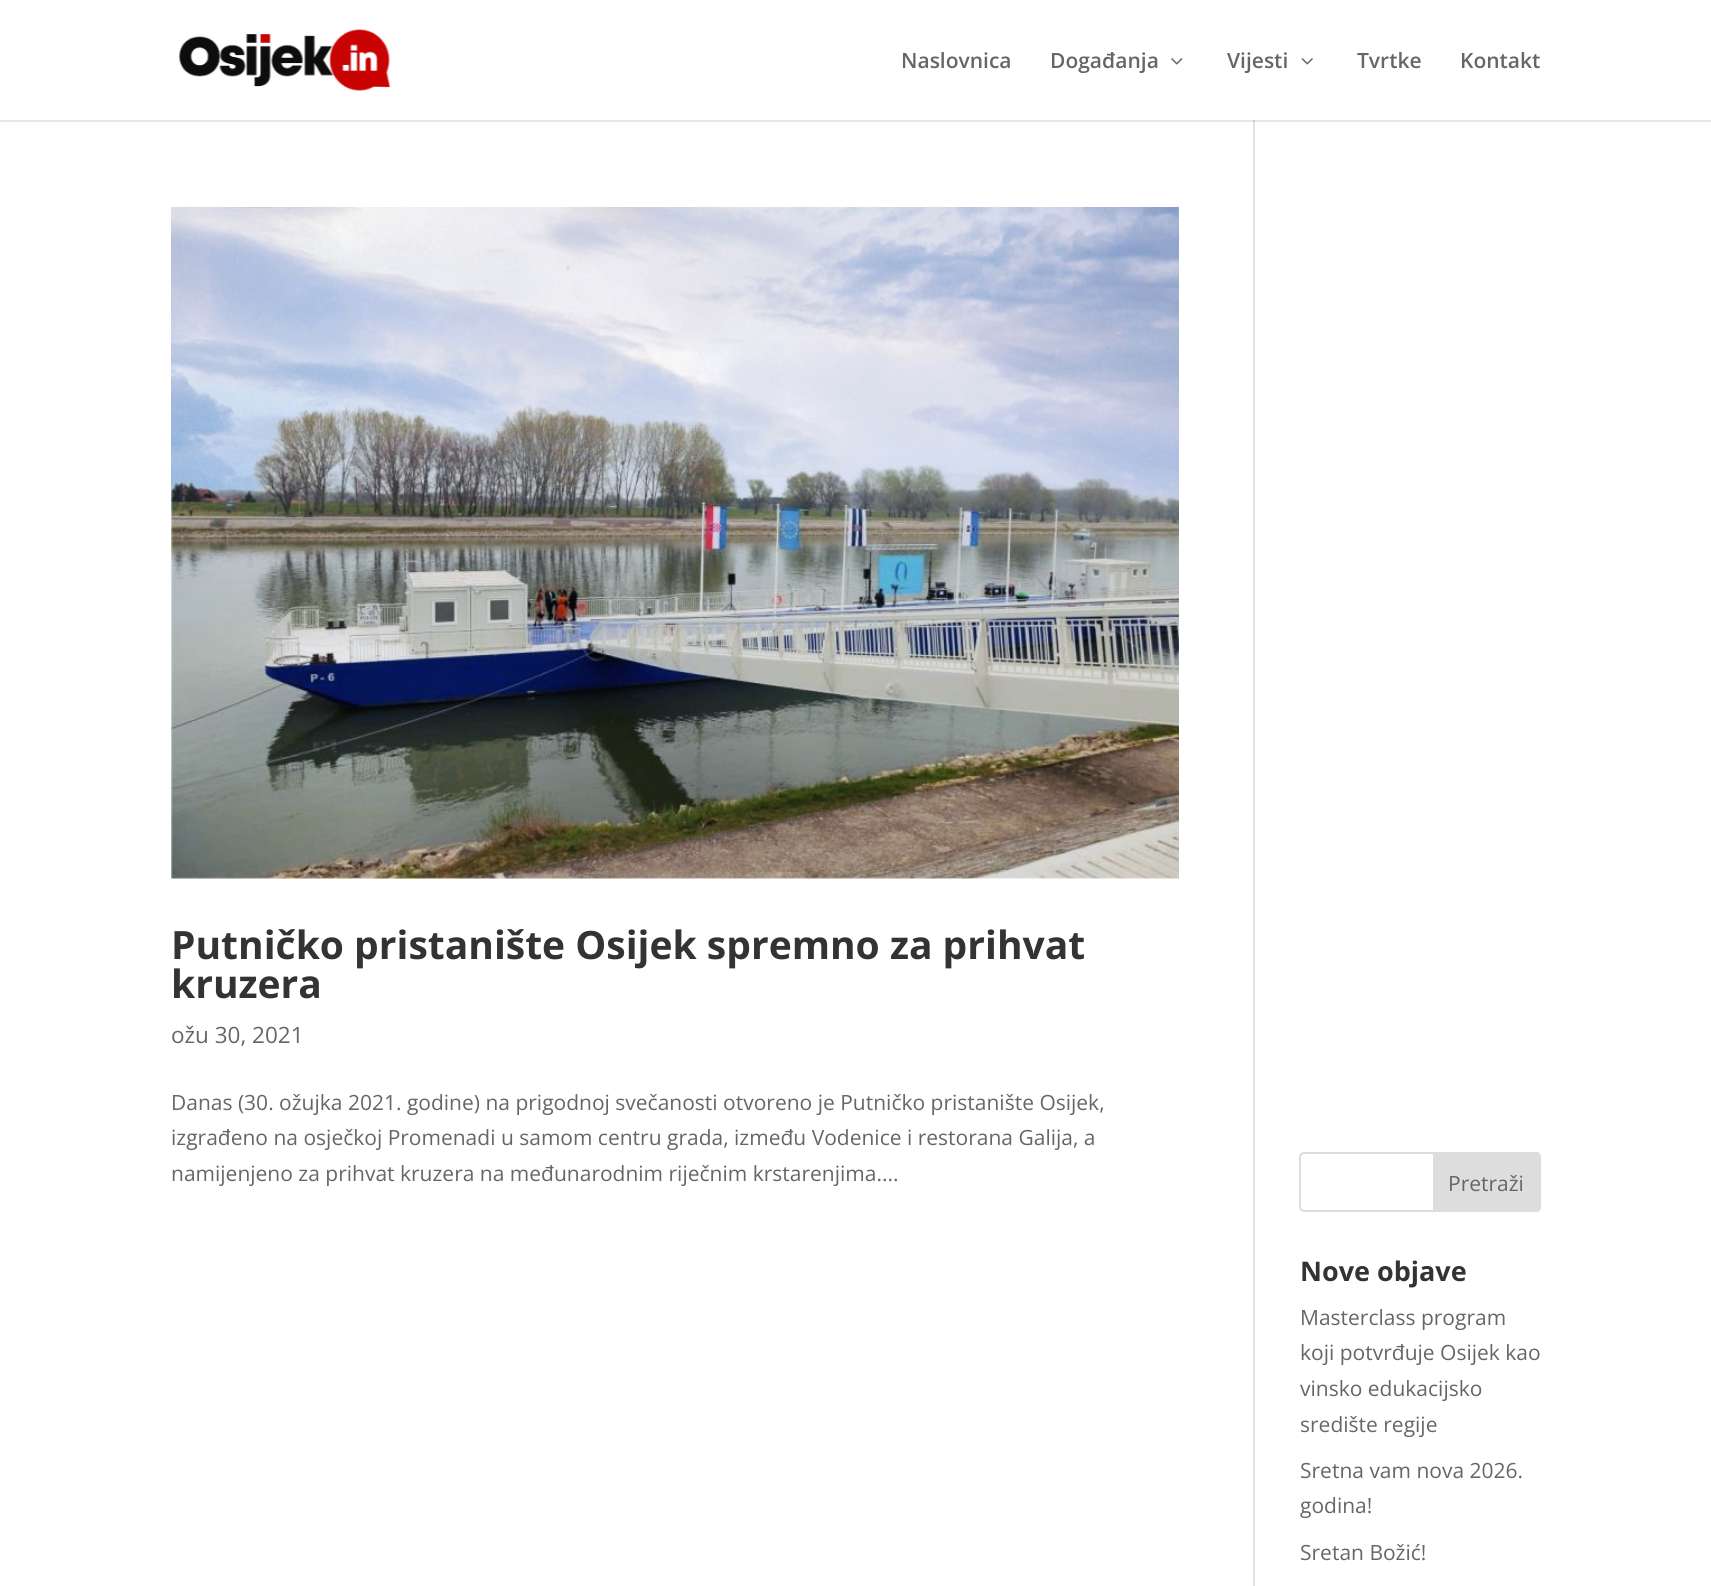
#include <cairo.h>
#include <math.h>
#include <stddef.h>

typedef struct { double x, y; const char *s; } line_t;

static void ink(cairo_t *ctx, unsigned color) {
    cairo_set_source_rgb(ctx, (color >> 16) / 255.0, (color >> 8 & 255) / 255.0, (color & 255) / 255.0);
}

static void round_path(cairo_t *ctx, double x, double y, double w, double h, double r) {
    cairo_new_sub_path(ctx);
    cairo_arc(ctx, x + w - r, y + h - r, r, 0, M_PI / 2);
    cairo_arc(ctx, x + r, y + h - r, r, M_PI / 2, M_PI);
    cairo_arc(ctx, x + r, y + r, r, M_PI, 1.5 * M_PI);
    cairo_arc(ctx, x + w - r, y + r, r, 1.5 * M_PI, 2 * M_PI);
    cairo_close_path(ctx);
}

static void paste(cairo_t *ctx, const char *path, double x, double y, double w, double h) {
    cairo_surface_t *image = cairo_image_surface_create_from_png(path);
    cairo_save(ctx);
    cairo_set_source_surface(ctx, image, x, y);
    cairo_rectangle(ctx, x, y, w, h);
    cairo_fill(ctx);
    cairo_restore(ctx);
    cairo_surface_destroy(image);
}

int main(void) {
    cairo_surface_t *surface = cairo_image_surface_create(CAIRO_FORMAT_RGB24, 1711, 1586);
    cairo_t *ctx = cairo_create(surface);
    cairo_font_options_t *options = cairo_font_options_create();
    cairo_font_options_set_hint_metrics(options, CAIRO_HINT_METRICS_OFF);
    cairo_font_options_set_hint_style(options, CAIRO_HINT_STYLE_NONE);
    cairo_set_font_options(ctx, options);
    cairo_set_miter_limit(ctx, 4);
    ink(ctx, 0xFFFFFF);
    cairo_paint(ctx);
    ink(ctx, 0xE2E2E2);
    cairo_rectangle(ctx, 1253, 120, 2, 1466);
    cairo_fill(ctx);
    cairo_set_source_rgba(ctx, 0, 0, 0, 0.1);
    cairo_new_path(ctx);
    cairo_move_to(ctx, 0, 120);
    cairo_line_to(ctx, 0, 122);
    cairo_line_to(ctx, 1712, 122);
    cairo_line_to(ctx, 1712, 2);
    cairo_line_to(ctx, 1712, 120);
    cairo_close_path(ctx);
    cairo_fill(ctx);
    paste(ctx, "media/1.png", 178, 29, 213, 62);
    cairo_select_font_face(ctx, "Open Sans SemiBold", CAIRO_FONT_SLANT_NORMAL, CAIRO_FONT_WEIGHT_NORMAL);
    cairo_set_font_size(ctx, 21);
    ink(ctx, 0x666666);
    cairo_move_to(ctx, 901, 68);
    cairo_show_text(ctx, "Naslovnica");
    cairo_move_to(ctx, 1050, 68);
    cairo_show_text(ctx, "Događanja");
    paste(ctx, "media/2.png", 1171, 58, 12, 7);
    cairo_move_to(ctx, 1227, 68);
    cairo_show_text(ctx, "Vijesti");
    paste(ctx, "media/3.png", 1301, 58, 12, 7);
    cairo_move_to(ctx, 1357, 68);
    cairo_show_text(ctx, "Tvrtke");
    cairo_move_to(ctx, 1460, 68);
    cairo_show_text(ctx, "Kontakt");
    paste(ctx, "media/4.png", 171, 207, 1008, 672);
    cairo_select_font_face(ctx, "Open Sans", CAIRO_FONT_SLANT_NORMAL, CAIRO_FONT_WEIGHT_BOLD);
    cairo_set_font_size(ctx, 39);
    ink(ctx, 0x333333);
    cairo_move_to(ctx, 171, 959);
    cairo_show_text(ctx, "Putničko pristanište Osijek spremno za prihvat");
    cairo_move_to(ctx, 171, 998);
    cairo_show_text(ctx, "kruzera");
    cairo_select_font_face(ctx, "Open Sans", CAIRO_FONT_SLANT_NORMAL, CAIRO_FONT_WEIGHT_NORMAL);
    cairo_set_font_size(ctx, 22.5);
    ink(ctx, 0x666666);
    cairo_move_to(ctx, 171, 1043);
    cairo_show_text(ctx, "ožu 30, 2021");
    cairo_set_font_size(ctx, 21);
    {
        static const line_t items[] = {
            {171, 1110, "Danas (30. ožujka 2021. godine) na prigodnoj svečanosti otvoreno je Putničko pristanište Osijek,"},
            {171, 1145, "izgrađeno na osječkoj Promenadi u samom centru grada, između Vodenice i restorana Galija, a"},
            {171, 1181, "namijenjeno za prihvat kruzera na međunarodnim riječnim krstarenjima...."},
        };
        for (size_t i = 0; i < sizeof items / sizeof *items; i++) {
            cairo_move_to(ctx, items[i].x, items[i].y);
            cairo_show_text(ctx, items[i].s);
        }
    }
    round_path(ctx, 1300, 1153, 240, 58, 4);
    ink(ctx, 0xDDDDDD);
    cairo_stroke(ctx);
    cairo_new_path(ctx);
    cairo_move_to(ctx, 1434, 1153);
    cairo_line_to(ctx, 1536, 1153);
    cairo_curve_to(ctx, 1538, 1153, 1540, 1155, 1540, 1157);
    cairo_line_to(ctx, 1540, 1207);
    cairo_curve_to(ctx, 1540, 1209, 1538, 1211, 1536, 1211);
    cairo_line_to(ctx, 1434, 1211);
    cairo_close_path(ctx);
    cairo_fill_preserve(ctx);
    cairo_stroke(ctx);
    ink(ctx, 0x666666);
    cairo_move_to(ctx, 1448, 1191);
    cairo_show_text(ctx, "Pretraži");
    cairo_select_font_face(ctx, "Open Sans", CAIRO_FONT_SLANT_NORMAL, CAIRO_FONT_WEIGHT_BOLD);
    cairo_set_font_size(ctx, 27);
    ink(ctx, 0x333333);
    cairo_move_to(ctx, 1300, 1281);
    cairo_show_text(ctx, "Nove objave");
    cairo_select_font_face(ctx, "Open Sans", CAIRO_FONT_SLANT_NORMAL, CAIRO_FONT_WEIGHT_NORMAL);
    cairo_set_font_size(ctx, 21);
    ink(ctx, 0x666666);
    {
        static const line_t items[] = {
            {1300, 1325, "Masterclass program"},
            {1300, 1360, "koji potvrđuje Osijek kao"},
            {1300, 1396, "vinsko edukacijsko"},
            {1300, 1432, "središte regije"},
            {1300, 1478, "Sretna vam nova 2026."},
            {1300, 1513, "godina!"},
            {1300, 1560, "Sretan Božić!"},
        };
        for (size_t i = 0; i < sizeof items / sizeof *items; i++) {
            cairo_move_to(ctx, items[i].x, items[i].y);
            cairo_show_text(ctx, items[i].s);
        }
    }
    cairo_surface_write_to_png(surface, "image.png");
    cairo_font_options_destroy(options);
    cairo_destroy(ctx);
    cairo_surface_destroy(surface);
    return 0;
}
